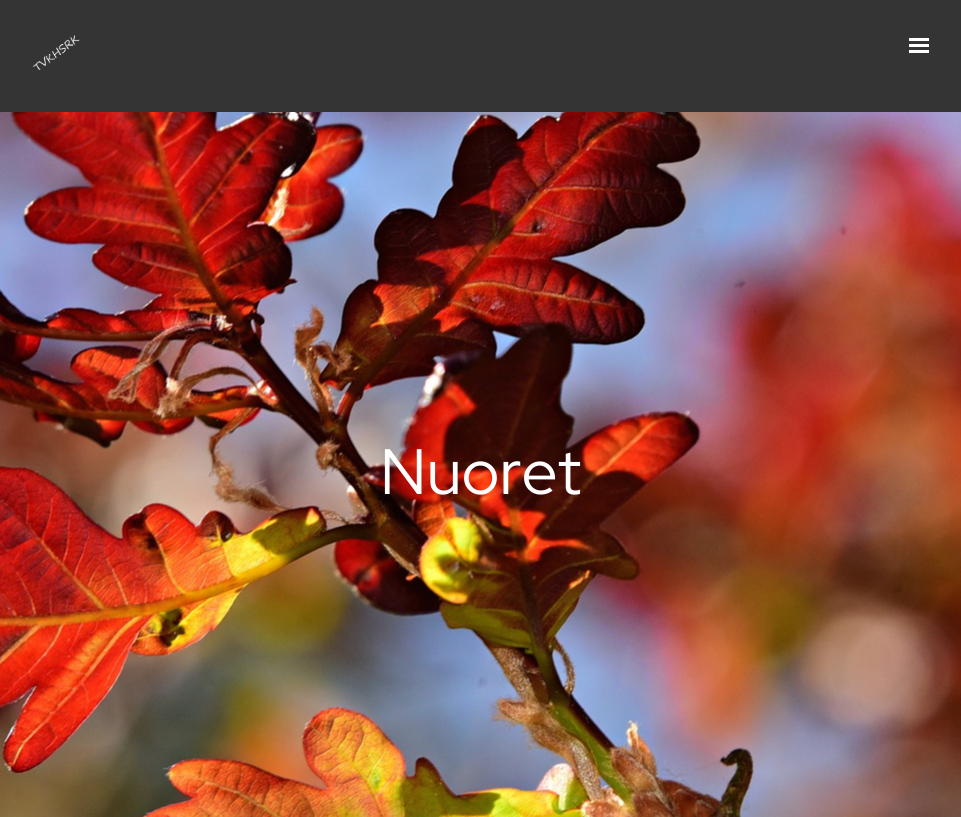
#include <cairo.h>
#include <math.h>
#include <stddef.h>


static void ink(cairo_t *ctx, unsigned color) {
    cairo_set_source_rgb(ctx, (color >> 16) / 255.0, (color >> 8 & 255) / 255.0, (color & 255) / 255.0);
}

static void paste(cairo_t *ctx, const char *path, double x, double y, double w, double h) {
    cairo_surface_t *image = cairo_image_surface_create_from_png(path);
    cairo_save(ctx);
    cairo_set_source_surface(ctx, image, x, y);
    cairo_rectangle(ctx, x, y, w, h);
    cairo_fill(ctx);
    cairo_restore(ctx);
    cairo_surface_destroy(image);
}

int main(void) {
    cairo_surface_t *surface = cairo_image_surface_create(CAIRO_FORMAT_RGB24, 961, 817);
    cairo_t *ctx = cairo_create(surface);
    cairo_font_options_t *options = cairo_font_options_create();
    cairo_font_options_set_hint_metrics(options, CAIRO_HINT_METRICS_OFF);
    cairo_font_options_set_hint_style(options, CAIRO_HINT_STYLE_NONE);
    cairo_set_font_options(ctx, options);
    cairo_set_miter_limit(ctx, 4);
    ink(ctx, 0x343434);
    cairo_paint(ctx);
    paste(ctx, "media/1.png", 32, 35, 48, 35);
    paste(ctx, "media/2.png", 909, 38, 20, 15);
    paste(ctx, "media/3.png", 0, 112, 961, 705);
    cairo_select_font_face(ctx, "Red Hat Display", CAIRO_FONT_SLANT_NORMAL, CAIRO_FONT_WEIGHT_NORMAL);
    cairo_set_font_size(ctx, 64);
    ink(ctx, 0xFFFFFF);
    cairo_move_to(ctx, 380, 494);
    cairo_show_text(ctx, "Nuoret");
    cairo_surface_write_to_png(surface, "image.png");
    cairo_font_options_destroy(options);
    cairo_destroy(ctx);
    cairo_surface_destroy(surface);
    return 0;
}
